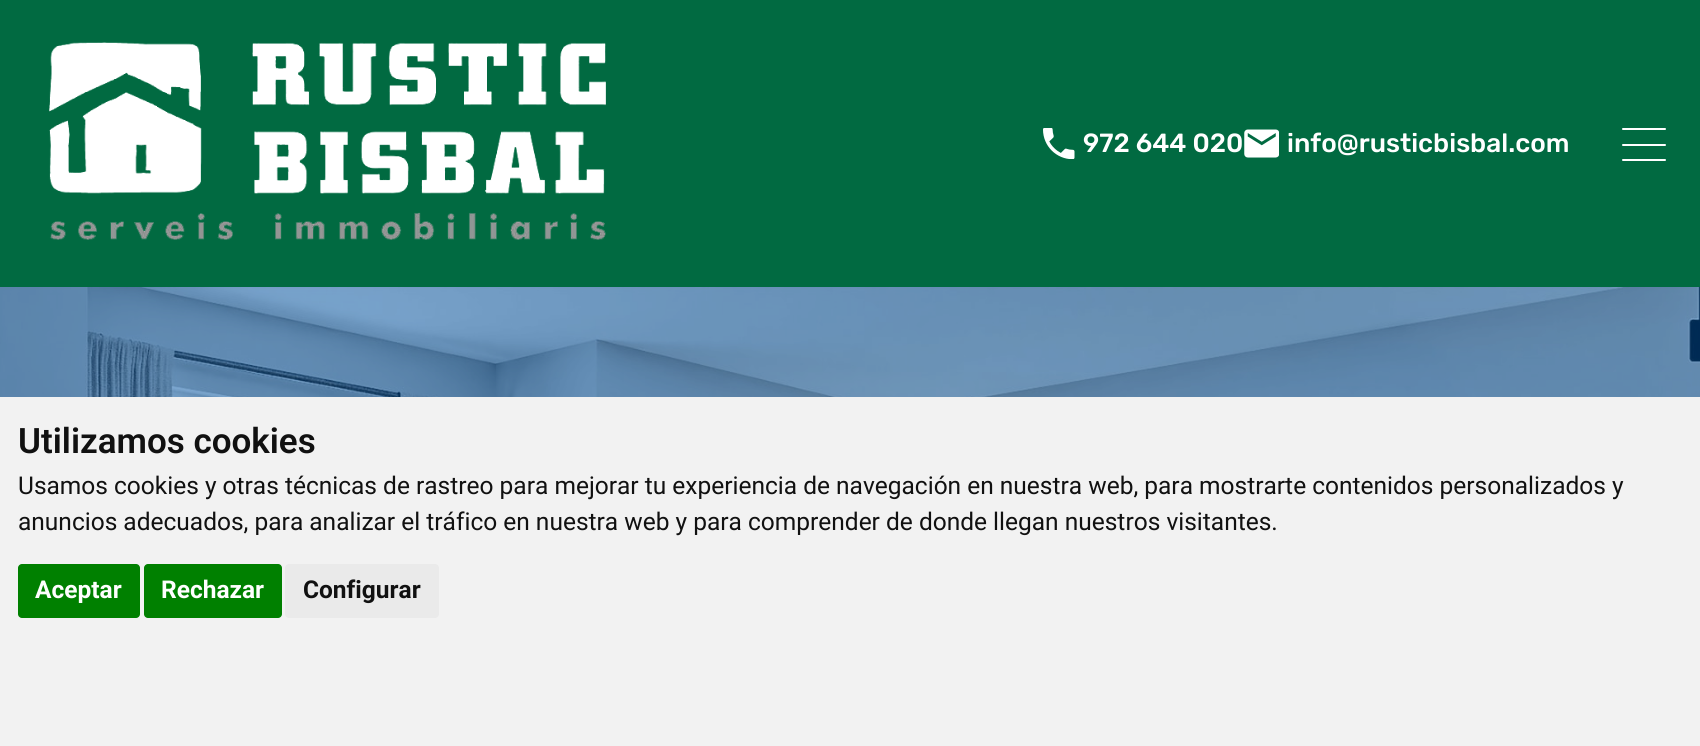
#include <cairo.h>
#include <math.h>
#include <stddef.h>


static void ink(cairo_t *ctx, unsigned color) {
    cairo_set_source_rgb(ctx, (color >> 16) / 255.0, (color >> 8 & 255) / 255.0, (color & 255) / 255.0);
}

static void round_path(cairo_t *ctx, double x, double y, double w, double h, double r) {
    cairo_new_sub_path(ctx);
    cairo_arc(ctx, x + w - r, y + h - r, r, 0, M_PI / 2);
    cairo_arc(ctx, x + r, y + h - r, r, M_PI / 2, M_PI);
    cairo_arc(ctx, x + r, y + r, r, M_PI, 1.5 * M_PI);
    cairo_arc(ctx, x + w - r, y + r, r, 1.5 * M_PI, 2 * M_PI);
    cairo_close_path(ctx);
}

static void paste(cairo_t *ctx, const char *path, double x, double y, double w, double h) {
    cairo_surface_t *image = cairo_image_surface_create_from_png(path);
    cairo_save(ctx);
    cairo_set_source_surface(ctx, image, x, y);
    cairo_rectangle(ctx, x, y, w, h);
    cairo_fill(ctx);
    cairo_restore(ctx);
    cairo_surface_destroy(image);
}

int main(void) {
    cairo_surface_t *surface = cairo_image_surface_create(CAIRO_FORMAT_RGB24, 1700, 746);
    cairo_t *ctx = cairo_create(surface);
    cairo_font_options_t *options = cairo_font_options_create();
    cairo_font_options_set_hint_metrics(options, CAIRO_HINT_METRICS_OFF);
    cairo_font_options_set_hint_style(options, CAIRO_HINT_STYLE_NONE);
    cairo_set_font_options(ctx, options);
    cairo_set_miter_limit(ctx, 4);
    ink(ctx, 0xFFFFFF);
    cairo_paint(ctx);
    ink(ctx, 0x016A41);
    cairo_rectangle(ctx, 0, 0, 1700, 287);
    cairo_fill(ctx);
    paste(ctx, "media/1.png", 49, 42, 557, 198);
    paste(ctx, "media/2.png", 1043, 128, 32, 31);
    cairo_select_font_face(ctx, "Rubik Medium", CAIRO_FONT_SLANT_NORMAL, CAIRO_FONT_WEIGHT_NORMAL);
    cairo_set_font_size(ctx, 26.25);
    ink(ctx, 0xFFFFFF);
    cairo_move_to(ctx, 1083, 152);
    cairo_show_text(ctx, "972 644 020");
    paste(ctx, "media/3.png", 1244, 129, 35, 29);
    cairo_move_to(ctx, 1287, 152);
    cairo_show_text(ctx, "info@rusticbisbal.com");
    round_path(ctx, 1622, 144, 44, 2, 1);
    cairo_fill(ctx);
    round_path(ctx, 1622, 128, 44, 2, 1);
    cairo_fill(ctx);
    round_path(ctx, 1622, 159, 44, 2, 1);
    cairo_fill(ctx);
    paste(ctx, "media/4.png", 0, 287, 1700, 110);
    ink(ctx, 0xF2F2F2);
    cairo_rectangle(ctx, 0, 397, 1700, 349);
    cairo_fill(ctx);
    cairo_select_font_face(ctx, "Roboto SemiBold", CAIRO_FONT_SLANT_NORMAL, CAIRO_FONT_WEIGHT_NORMAL);
    cairo_set_font_size(ctx, 35);
    ink(ctx, 0x111111);
    cairo_move_to(ctx, 18, 453);
    cairo_show_text(ctx, "Utilizamos cookies");
    cairo_select_font_face(ctx, "Roboto", CAIRO_FONT_SLANT_NORMAL, CAIRO_FONT_WEIGHT_NORMAL);
    cairo_set_font_size(ctx, 24.5);
    cairo_move_to(ctx, 18, 494);
    cairo_show_text(ctx, "Usamos cookies y otras técnicas de rastreo para mejorar tu experiencia de navegación en nuestra web, para mostrarte contenidos personalizados y");
    cairo_move_to(ctx, 18, 530);
    cairo_show_text(ctx, "anuncios adecuados, para analizar el tráfico en nuestra web y para comprender de donde llegan nuestros visitantes.");
    ink(ctx, 0x008000);
    round_path(ctx, 18, 564, 122, 54, 4);
    cairo_fill(ctx);
    cairo_select_font_face(ctx, "Roboto", CAIRO_FONT_SLANT_NORMAL, CAIRO_FONT_WEIGHT_BOLD);
    ink(ctx, 0xFFFFFF);
    cairo_move_to(ctx, 35, 598);
    cairo_show_text(ctx, "Aceptar");
    ink(ctx, 0x008000);
    round_path(ctx, 144, 564, 138, 54, 4);
    cairo_fill(ctx);
    ink(ctx, 0xFFFFFF);
    cairo_move_to(ctx, 161, 598);
    cairo_show_text(ctx, "Rechazar");
    ink(ctx, 0xEAEAEA);
    round_path(ctx, 285, 564, 154, 54, 4);
    cairo_fill(ctx);
    ink(ctx, 0x111111);
    cairo_move_to(ctx, 303, 598);
    cairo_show_text(ctx, "Configurar");
    cairo_surface_write_to_png(surface, "image.png");
    cairo_font_options_destroy(options);
    cairo_destroy(ctx);
    cairo_surface_destroy(surface);
    return 0;
}
